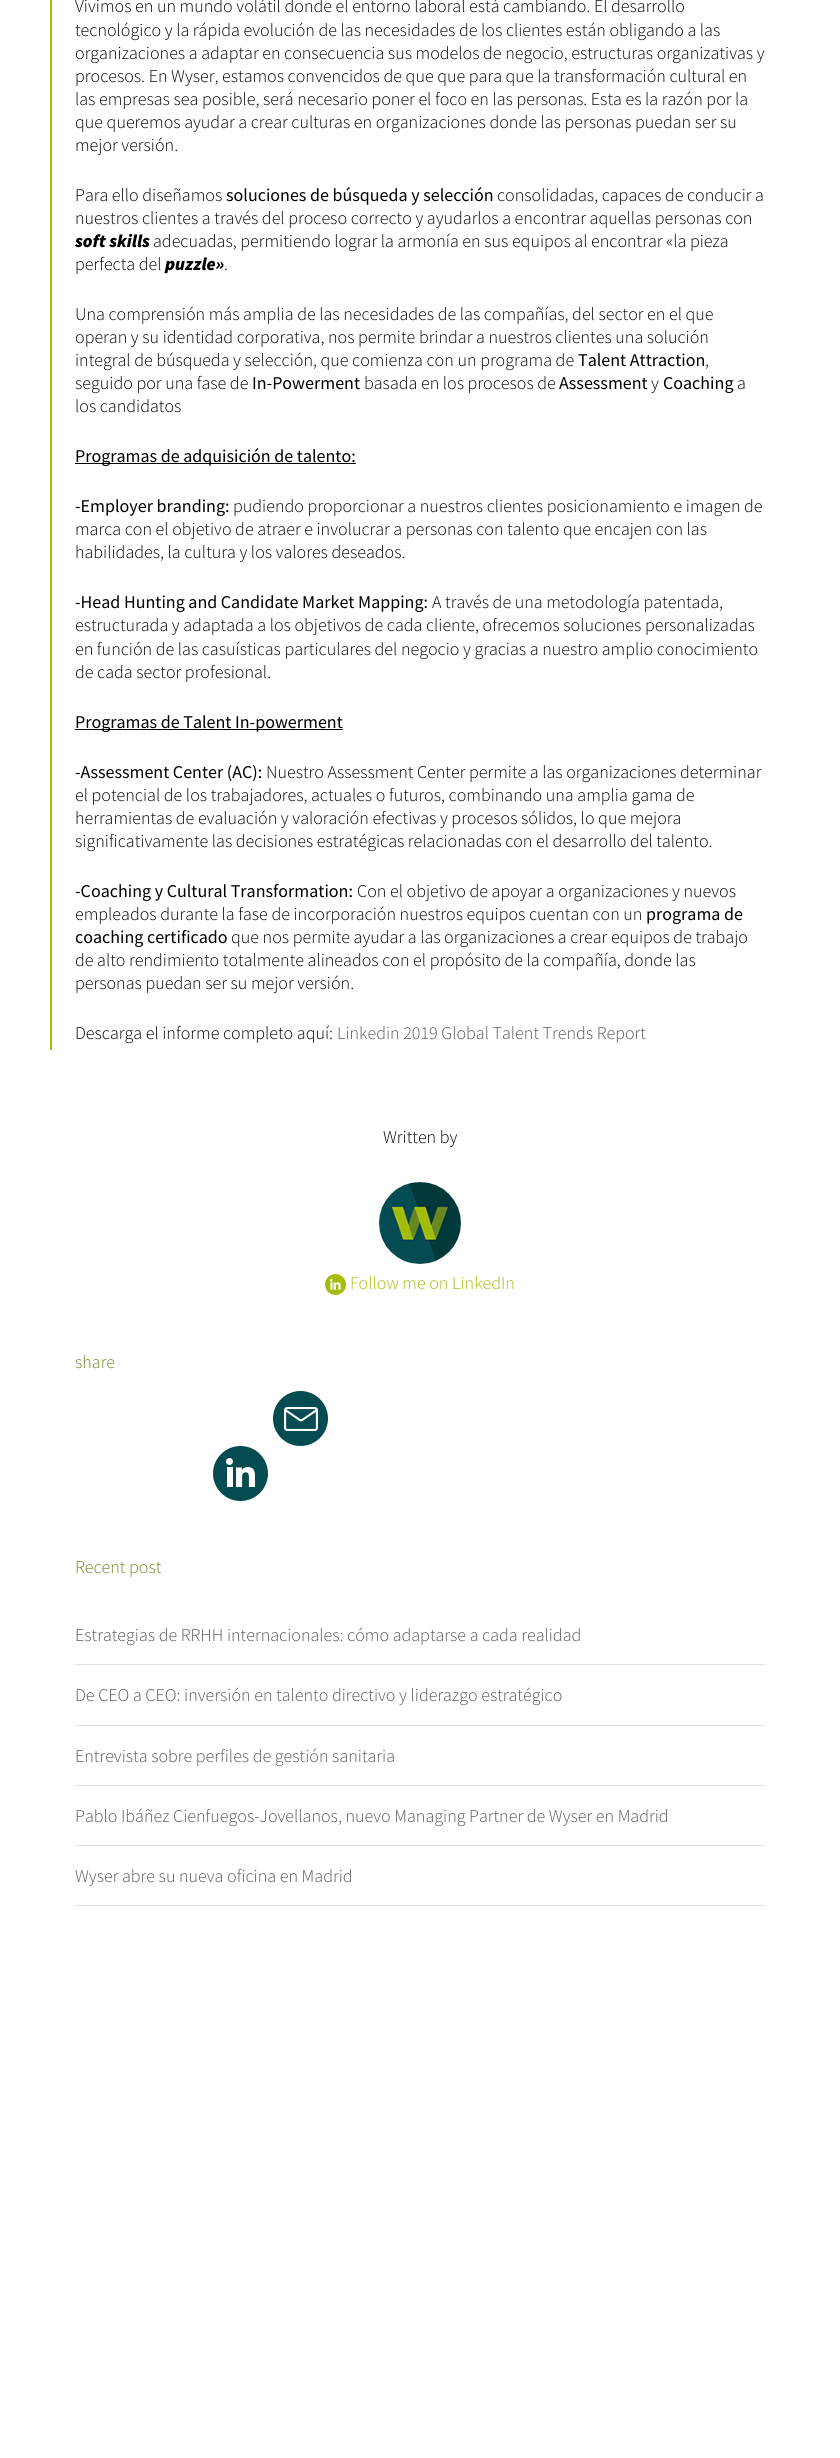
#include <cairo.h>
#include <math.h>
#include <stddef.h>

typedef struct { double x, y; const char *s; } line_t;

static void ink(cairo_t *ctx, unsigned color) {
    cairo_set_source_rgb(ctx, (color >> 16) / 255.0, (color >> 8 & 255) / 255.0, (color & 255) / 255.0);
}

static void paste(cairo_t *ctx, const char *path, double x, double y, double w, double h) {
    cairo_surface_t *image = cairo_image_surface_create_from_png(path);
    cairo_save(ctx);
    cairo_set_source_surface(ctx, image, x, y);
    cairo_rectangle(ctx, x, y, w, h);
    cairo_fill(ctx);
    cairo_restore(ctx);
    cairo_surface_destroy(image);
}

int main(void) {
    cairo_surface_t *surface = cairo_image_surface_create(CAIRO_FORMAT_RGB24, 840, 2458);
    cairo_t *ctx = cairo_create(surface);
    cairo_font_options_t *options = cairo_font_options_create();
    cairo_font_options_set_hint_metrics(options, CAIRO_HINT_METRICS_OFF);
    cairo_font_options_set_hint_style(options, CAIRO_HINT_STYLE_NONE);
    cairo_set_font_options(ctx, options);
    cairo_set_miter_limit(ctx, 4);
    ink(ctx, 0xFFFFFF);
    cairo_paint(ctx);
    ink(ctx, 0xA6BC0C);
    cairo_rectangle(ctx, 50, 0, 2, 1050);
    cairo_fill(ctx);
    cairo_select_font_face(ctx, "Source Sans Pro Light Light", CAIRO_FONT_SLANT_NORMAL, CAIRO_FONT_WEIGHT_NORMAL);
    cairo_set_font_size(ctx, 18);
    ink(ctx, 0x000000);
    {
        static const line_t items[] = {
            {75, 12, "Vivimos en un mundo volátil donde el entorno laboral está cambiando. El desarrollo"},
            {75, 36, "tecnológico y la rápida evolución de las necesidades de los clientes están obligando a las"},
            {75, 59, "organizaciones a adaptar en consecuencia sus modelos de negocio, estructuras organizativas y"},
            {75, 82, "procesos. En Wyser, estamos convencidos de que que para que la transformación cultural en"},
            {75, 105, "las empresas sea posible, será necesario poner el foco en las personas. Esta es la razón por la"},
            {75, 128, "que queremos ayudar a crear culturas en organizaciones donde las personas puedan ser su"},
            {75, 151, "mejor versión."},
            {75, 201, "Para ello diseñamos"},
        };
        for (size_t i = 0; i < sizeof items / sizeof *items; i++) {
            cairo_move_to(ctx, items[i].x, items[i].y);
            cairo_show_text(ctx, items[i].s);
        }
    }
    cairo_select_font_face(ctx, "Source Sans Pro", CAIRO_FONT_SLANT_NORMAL, CAIRO_FONT_WEIGHT_NORMAL);
    cairo_move_to(ctx, 226, 201);
    cairo_show_text(ctx, "soluciones de búsqueda y selección");
    cairo_select_font_face(ctx, "Source Sans Pro Light Light", CAIRO_FONT_SLANT_NORMAL, CAIRO_FONT_WEIGHT_NORMAL);
    cairo_move_to(ctx, 497, 201);
    cairo_show_text(ctx, "consolidadas, capaces de conducir a");
    cairo_move_to(ctx, 75, 224);
    cairo_show_text(ctx, "nuestros clientes a través del proceso correcto y ayudarlos a encontrar aquellas personas con");
    cairo_select_font_face(ctx, "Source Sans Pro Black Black", CAIRO_FONT_SLANT_ITALIC, CAIRO_FONT_WEIGHT_NORMAL);
    cairo_move_to(ctx, 75, 247);
    cairo_show_text(ctx, "soft skills");
    cairo_select_font_face(ctx, "Source Sans Pro Light Light", CAIRO_FONT_SLANT_NORMAL, CAIRO_FONT_WEIGHT_NORMAL);
    cairo_move_to(ctx, 153, 247);
    cairo_show_text(ctx, "adecuadas, permitiendo lograr la armonía en sus equipos al encontrar «la pieza");
    cairo_move_to(ctx, 75, 270);
    cairo_show_text(ctx, "perfecta del");
    cairo_select_font_face(ctx, "Source Sans Pro Black Black", CAIRO_FONT_SLANT_ITALIC, CAIRO_FONT_WEIGHT_NORMAL);
    cairo_move_to(ctx, 165, 270);
    cairo_show_text(ctx, "puzzle»");
    cairo_select_font_face(ctx, "Source Sans Pro Light Light", CAIRO_FONT_SLANT_NORMAL, CAIRO_FONT_WEIGHT_NORMAL);
    {
        static const line_t items[] = {
            {224, 270, "."},
            {75, 320, "Una comprensión más amplia de las necesidades de las compañías, del sector en el que"},
            {75, 343, "operan y su identidad corporativa, nos permite brindar a nuestros clientes una solución"},
            {75, 366, "integral de búsqueda y selección, que comienza con un programa de"},
        };
        for (size_t i = 0; i < sizeof items / sizeof *items; i++) {
            cairo_move_to(ctx, items[i].x, items[i].y);
            cairo_show_text(ctx, items[i].s);
        }
    }
    cairo_select_font_face(ctx, "Source Sans Pro", CAIRO_FONT_SLANT_NORMAL, CAIRO_FONT_WEIGHT_NORMAL);
    cairo_move_to(ctx, 578, 366);
    cairo_show_text(ctx, "Talent Attraction");
    cairo_select_font_face(ctx, "Source Sans Pro Light Light", CAIRO_FONT_SLANT_NORMAL, CAIRO_FONT_WEIGHT_NORMAL);
    cairo_move_to(ctx, 705, 366);
    cairo_show_text(ctx, ",");
    cairo_move_to(ctx, 75, 389);
    cairo_show_text(ctx, "seguido por una fase de");
    cairo_select_font_face(ctx, "Source Sans Pro", CAIRO_FONT_SLANT_NORMAL, CAIRO_FONT_WEIGHT_NORMAL);
    cairo_move_to(ctx, 252, 389);
    cairo_show_text(ctx, "In-Powerment");
    cairo_select_font_face(ctx, "Source Sans Pro Light Light", CAIRO_FONT_SLANT_NORMAL, CAIRO_FONT_WEIGHT_NORMAL);
    cairo_move_to(ctx, 364, 389);
    cairo_show_text(ctx, "basada en los procesos de");
    cairo_select_font_face(ctx, "Source Sans Pro", CAIRO_FONT_SLANT_NORMAL, CAIRO_FONT_WEIGHT_NORMAL);
    cairo_move_to(ctx, 559, 389);
    cairo_show_text(ctx, "Assessment");
    cairo_select_font_face(ctx, "Source Sans Pro Light Light", CAIRO_FONT_SLANT_NORMAL, CAIRO_FONT_WEIGHT_NORMAL);
    cairo_move_to(ctx, 651, 389);
    cairo_show_text(ctx, "y");
    cairo_select_font_face(ctx, "Source Sans Pro", CAIRO_FONT_SLANT_NORMAL, CAIRO_FONT_WEIGHT_NORMAL);
    cairo_move_to(ctx, 663, 389);
    cairo_show_text(ctx, "Coaching");
    cairo_select_font_face(ctx, "Source Sans Pro Light Light", CAIRO_FONT_SLANT_NORMAL, CAIRO_FONT_WEIGHT_NORMAL);
    cairo_move_to(ctx, 737, 389);
    cairo_show_text(ctx, "a");
    cairo_move_to(ctx, 75, 412);
    cairo_show_text(ctx, "los candidatos");
    cairo_rectangle(ctx, 75, 463, 281, 1);
    cairo_fill(ctx);
    cairo_select_font_face(ctx, "Source Sans Pro", CAIRO_FONT_SLANT_NORMAL, CAIRO_FONT_WEIGHT_NORMAL);
    cairo_move_to(ctx, 75, 462);
    cairo_show_text(ctx, "Programas de adquisición de talento:");
    cairo_move_to(ctx, 75, 512);
    cairo_show_text(ctx, "-Employer branding:");
    cairo_select_font_face(ctx, "Source Sans Pro Light Light", CAIRO_FONT_SLANT_NORMAL, CAIRO_FONT_WEIGHT_NORMAL);
    {
        static const line_t items[] = {
            {233, 512, "pudiendo proporcionar a nuestros clientes posicionamiento e imagen de"},
            {75, 535, "marca con el objetivo de atraer e involucrar a personas con talento que encajen con las"},
            {75, 558, "habilidades, la cultura y los valores deseados."},
        };
        for (size_t i = 0; i < sizeof items / sizeof *items; i++) {
            cairo_move_to(ctx, items[i].x, items[i].y);
            cairo_show_text(ctx, items[i].s);
        }
    }
    cairo_select_font_face(ctx, "Source Sans Pro", CAIRO_FONT_SLANT_NORMAL, CAIRO_FONT_WEIGHT_NORMAL);
    cairo_move_to(ctx, 75, 608);
    cairo_show_text(ctx, "-Head Hunting and Candidate Market Mapping:");
    cairo_select_font_face(ctx, "Source Sans Pro Light Light", CAIRO_FONT_SLANT_NORMAL, CAIRO_FONT_WEIGHT_NORMAL);
    {
        static const line_t items[] = {
            {432, 608, "A través de una metodología patentada,"},
            {75, 631, "estructurada y adaptada a los objetivos de cada cliente, ofrecemos soluciones personalizadas"},
            {75, 655, "en función de las casuísticas particulares del negocio y gracias a nuestro amplio conocimiento"},
            {75, 678, "de cada sector profesional."},
        };
        for (size_t i = 0; i < sizeof items / sizeof *items; i++) {
            cairo_move_to(ctx, items[i].x, items[i].y);
            cairo_show_text(ctx, items[i].s);
        }
    }
    cairo_rectangle(ctx, 75, 729, 268, 1);
    cairo_fill(ctx);
    cairo_select_font_face(ctx, "Source Sans Pro", CAIRO_FONT_SLANT_NORMAL, CAIRO_FONT_WEIGHT_NORMAL);
    cairo_move_to(ctx, 75, 728);
    cairo_show_text(ctx, "Programas de Talent In-powerment");
    cairo_move_to(ctx, 75, 778);
    cairo_show_text(ctx, "-Assessment Center (AC):");
    cairo_select_font_face(ctx, "Source Sans Pro Light Light", CAIRO_FONT_SLANT_NORMAL, CAIRO_FONT_WEIGHT_NORMAL);
    {
        static const line_t items[] = {
            {266, 778, "Nuestro Assessment Center permite a las organizaciones determinar"},
            {75, 801, "el potencial de los trabajadores, actuales o futuros, combinando una amplia gama de"},
            {75, 824, "herramientas de evaluación y valoración efectivas y procesos sólidos, lo que mejora"},
            {75, 847, "significativamente las decisiones estratégicas relacionadas con el desarrollo del talento."},
        };
        for (size_t i = 0; i < sizeof items / sizeof *items; i++) {
            cairo_move_to(ctx, items[i].x, items[i].y);
            cairo_show_text(ctx, items[i].s);
        }
    }
    cairo_select_font_face(ctx, "Source Sans Pro", CAIRO_FONT_SLANT_NORMAL, CAIRO_FONT_WEIGHT_NORMAL);
    cairo_move_to(ctx, 75, 897);
    cairo_show_text(ctx, "-Coaching y Cultural Transformation:");
    cairo_select_font_face(ctx, "Source Sans Pro Light Light", CAIRO_FONT_SLANT_NORMAL, CAIRO_FONT_WEIGHT_NORMAL);
    cairo_move_to(ctx, 357, 897);
    cairo_show_text(ctx, "Con el objetivo de apoyar a organizaciones y nuevos");
    cairo_move_to(ctx, 75, 920);
    cairo_show_text(ctx, "empleados durante la fase de incorporación nuestros equipos cuentan con un");
    cairo_select_font_face(ctx, "Source Sans Pro", CAIRO_FONT_SLANT_NORMAL, CAIRO_FONT_WEIGHT_NORMAL);
    cairo_move_to(ctx, 646, 920);
    cairo_show_text(ctx, "programa de");
    cairo_move_to(ctx, 75, 943);
    cairo_show_text(ctx, "coaching certificado");
    cairo_select_font_face(ctx, "Source Sans Pro Light Light", CAIRO_FONT_SLANT_NORMAL, CAIRO_FONT_WEIGHT_NORMAL);
    {
        static const line_t items[] = {
            {231, 943, "que nos permite ayudar a las organizaciones a crear equipos de trabajo"},
            {75, 966, "de alto rendimiento totalmente alineados con el propósito de la compañía, donde las"},
            {75, 989, "personas puedan ser su mejor versión."},
            {75, 1039, "Descarga el informe completo aquí:"},
        };
        for (size_t i = 0; i < sizeof items / sizeof *items; i++) {
            cairo_move_to(ctx, items[i].x, items[i].y);
            cairo_show_text(ctx, items[i].s);
        }
    }
    ink(ctx, 0x575656);
    cairo_move_to(ctx, 337, 1039);
    cairo_show_text(ctx, "Linkedin 2019 Global Talent Trends Report");
    ink(ctx, 0x000000);
    cairo_move_to(ctx, 383, 1143);
    cairo_show_text(ctx, "Written by");
    paste(ctx, "media/1.png", 379, 1182, 82, 82);
    paste(ctx, "media/2.png", 325, 1274, 21, 21);
    ink(ctx, 0xA6BC0C);
    cairo_move_to(ctx, 350, 1289);
    cairo_show_text(ctx, "Follow me on LinkedIn");
    ink(ctx, 0x688822);
    cairo_move_to(ctx, 75, 1368);
    cairo_show_text(ctx, "share");
    paste(ctx, "media/3.png", 273, 1391, 55, 55);
    paste(ctx, "media/4.png", 213, 1446, 55, 55);
    cairo_move_to(ctx, 75, 1573);
    cairo_show_text(ctx, "Recent post");
    ink(ctx, 0xDEE2E6);
    cairo_rectangle(ctx, 75, 1664, 690, 1);
    cairo_fill(ctx);
    ink(ctx, 0x575656);
    cairo_move_to(ctx, 75, 1641);
    cairo_show_text(ctx, "Estrategias de RRHH internacionales: cómo adaptarse a cada realidad");
    ink(ctx, 0xDEE2E6);
    cairo_rectangle(ctx, 75, 1725, 690, 1);
    cairo_fill(ctx);
    ink(ctx, 0x575656);
    cairo_move_to(ctx, 75, 1701);
    cairo_show_text(ctx, "De CEO a CEO: inversión en talento directivo y liderazgo estratégico");
    ink(ctx, 0xDEE2E6);
    cairo_rectangle(ctx, 75, 1785, 690, 1);
    cairo_fill(ctx);
    ink(ctx, 0x575656);
    cairo_move_to(ctx, 75, 1762);
    cairo_show_text(ctx, "Entrevista sobre perfiles de gestión sanitaria");
    ink(ctx, 0xDEE2E6);
    cairo_rectangle(ctx, 75, 1845, 690, 1);
    cairo_fill(ctx);
    ink(ctx, 0x575656);
    cairo_move_to(ctx, 75, 1822);
    cairo_show_text(ctx, "Pablo Ibáñez Cienfuegos-Jovellanos, nuevo Managing Partner de Wyser en Madrid");
    ink(ctx, 0xDEE2E6);
    cairo_rectangle(ctx, 75, 1905, 690, 1);
    cairo_fill(ctx);
    ink(ctx, 0x575656);
    cairo_move_to(ctx, 75, 1882);
    cairo_show_text(ctx, "Wyser abre su nueva oficina en Madrid");
    cairo_surface_write_to_png(surface, "image.png");
    cairo_font_options_destroy(options);
    cairo_destroy(ctx);
    cairo_surface_destroy(surface);
    return 0;
}
